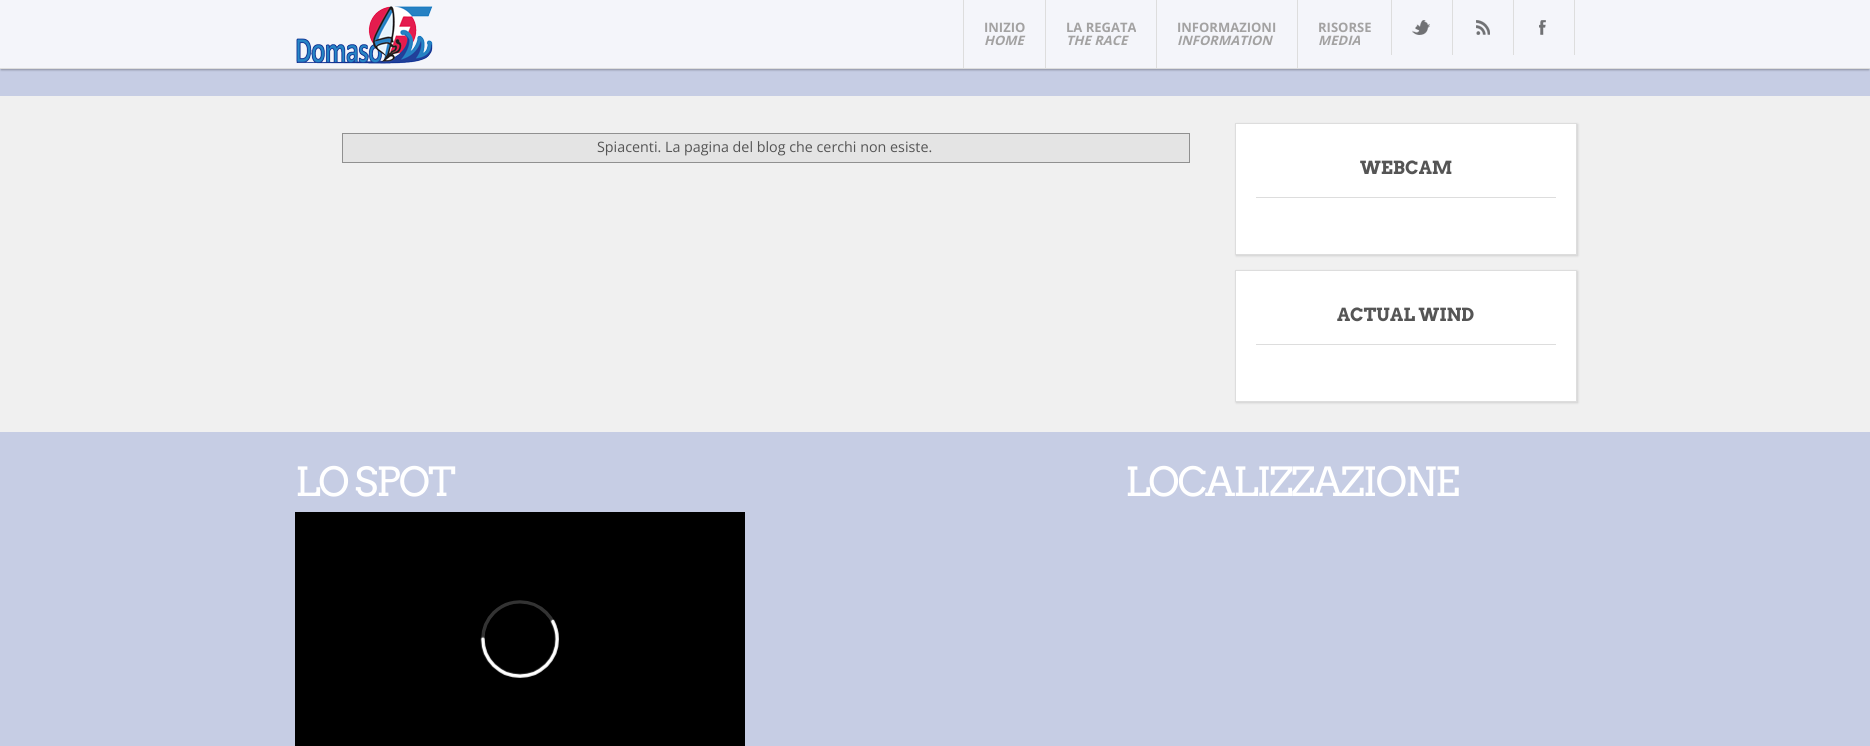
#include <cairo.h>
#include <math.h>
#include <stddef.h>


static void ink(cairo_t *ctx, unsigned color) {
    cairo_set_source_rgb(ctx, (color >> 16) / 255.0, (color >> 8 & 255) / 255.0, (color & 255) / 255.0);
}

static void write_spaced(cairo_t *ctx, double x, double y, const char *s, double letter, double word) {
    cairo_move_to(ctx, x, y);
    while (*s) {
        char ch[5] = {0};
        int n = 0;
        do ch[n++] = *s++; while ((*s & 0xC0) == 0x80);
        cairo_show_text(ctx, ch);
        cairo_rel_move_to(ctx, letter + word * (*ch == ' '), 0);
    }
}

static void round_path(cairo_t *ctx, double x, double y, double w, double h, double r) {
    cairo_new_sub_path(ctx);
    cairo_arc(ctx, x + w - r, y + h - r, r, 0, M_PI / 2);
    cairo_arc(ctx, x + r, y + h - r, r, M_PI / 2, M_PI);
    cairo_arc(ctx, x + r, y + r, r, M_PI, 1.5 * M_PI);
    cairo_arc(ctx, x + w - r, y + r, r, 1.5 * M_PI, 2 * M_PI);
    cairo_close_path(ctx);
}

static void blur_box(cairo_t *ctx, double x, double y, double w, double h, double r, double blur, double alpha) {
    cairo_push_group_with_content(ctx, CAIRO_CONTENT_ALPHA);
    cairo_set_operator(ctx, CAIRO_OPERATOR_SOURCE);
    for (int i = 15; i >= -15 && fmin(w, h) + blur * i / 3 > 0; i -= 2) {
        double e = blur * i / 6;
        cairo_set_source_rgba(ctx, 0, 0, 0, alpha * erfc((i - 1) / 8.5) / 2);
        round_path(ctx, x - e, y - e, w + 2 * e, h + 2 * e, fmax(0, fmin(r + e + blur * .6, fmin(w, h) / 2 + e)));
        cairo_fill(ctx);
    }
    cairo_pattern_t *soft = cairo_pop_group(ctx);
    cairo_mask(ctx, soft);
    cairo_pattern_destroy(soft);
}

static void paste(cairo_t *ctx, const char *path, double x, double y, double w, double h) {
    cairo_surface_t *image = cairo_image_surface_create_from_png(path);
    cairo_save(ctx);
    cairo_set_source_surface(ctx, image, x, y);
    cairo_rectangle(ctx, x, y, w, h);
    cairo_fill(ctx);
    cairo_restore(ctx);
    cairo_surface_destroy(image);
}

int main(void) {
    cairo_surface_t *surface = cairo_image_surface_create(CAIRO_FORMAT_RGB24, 1870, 746);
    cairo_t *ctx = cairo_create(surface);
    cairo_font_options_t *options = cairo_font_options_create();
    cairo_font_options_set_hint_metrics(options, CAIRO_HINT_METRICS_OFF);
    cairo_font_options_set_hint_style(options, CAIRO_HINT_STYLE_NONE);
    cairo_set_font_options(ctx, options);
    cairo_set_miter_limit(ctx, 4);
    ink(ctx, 0xC6CDE4);
    cairo_paint(ctx);
    ink(ctx, 0x000000);
    blur_box(ctx, 1, 3, 1868, 67, 0, 1, 0.3);
    ink(ctx, 0xF4F5FA);
    cairo_rectangle(ctx, 0, 0, 1870, 68);
    cairo_fill(ctx);
    ink(ctx, 0xDDDDDD);
    cairo_rectangle(ctx, 0, 68, 1870, 1);
    cairo_fill(ctx);
    paste(ctx, "media/1.png", 296, 6, 137, 58);
    cairo_rectangle(ctx, 963, 0, 1, 68);
    cairo_fill(ctx);
    cairo_select_font_face(ctx, "Open Sans", CAIRO_FONT_SLANT_NORMAL, CAIRO_FONT_WEIGHT_BOLD);
    cairo_set_font_size(ctx, 13);
    ink(ctx, 0xA3A2A2);
    cairo_move_to(ctx, 984, 32);
    cairo_show_text(ctx, "INIZIO");
    cairo_select_font_face(ctx, "Open Sans", CAIRO_FONT_SLANT_ITALIC, CAIRO_FONT_WEIGHT_BOLD);
    cairo_move_to(ctx, 984, 45);
    cairo_show_text(ctx, "HOME");
    ink(ctx, 0xDDDDDD);
    cairo_rectangle(ctx, 1045, 0, 1, 68);
    cairo_fill(ctx);
    cairo_select_font_face(ctx, "Open Sans", CAIRO_FONT_SLANT_NORMAL, CAIRO_FONT_WEIGHT_BOLD);
    ink(ctx, 0xA3A2A2);
    cairo_move_to(ctx, 1066, 32);
    cairo_show_text(ctx, "LA REGATA");
    cairo_select_font_face(ctx, "Open Sans", CAIRO_FONT_SLANT_ITALIC, CAIRO_FONT_WEIGHT_BOLD);
    cairo_move_to(ctx, 1066, 45);
    cairo_show_text(ctx, "THE RACE");
    ink(ctx, 0xDDDDDD);
    cairo_rectangle(ctx, 1156, 0, 1, 68);
    cairo_fill(ctx);
    cairo_select_font_face(ctx, "Open Sans", CAIRO_FONT_SLANT_NORMAL, CAIRO_FONT_WEIGHT_BOLD);
    ink(ctx, 0xA3A2A2);
    cairo_move_to(ctx, 1177, 32);
    cairo_show_text(ctx, "INFORMAZIONI");
    cairo_select_font_face(ctx, "Open Sans", CAIRO_FONT_SLANT_ITALIC, CAIRO_FONT_WEIGHT_BOLD);
    cairo_move_to(ctx, 1177, 45);
    cairo_show_text(ctx, "INFORMATION");
    ink(ctx, 0xDDDDDD);
    cairo_rectangle(ctx, 1297, 0, 1, 68);
    cairo_fill(ctx);
    cairo_select_font_face(ctx, "Open Sans", CAIRO_FONT_SLANT_NORMAL, CAIRO_FONT_WEIGHT_BOLD);
    ink(ctx, 0xA3A2A2);
    cairo_move_to(ctx, 1318, 32);
    cairo_show_text(ctx, "RISORSE");
    cairo_select_font_face(ctx, "Open Sans", CAIRO_FONT_SLANT_ITALIC, CAIRO_FONT_WEIGHT_BOLD);
    cairo_move_to(ctx, 1318, 45);
    cairo_show_text(ctx, "MEDIA");
    ink(ctx, 0xDDDDDD);
    cairo_rectangle(ctx, 1391, 0, 1, 55);
    cairo_fill(ctx);
    paste(ctx, "media/2.png", 1412, 20, 18, 15);
    cairo_rectangle(ctx, 1452, 0, 1, 55);
    cairo_fill(ctx);
    paste(ctx, "media/3.png", 1476, 20, 14, 15);
    cairo_rectangle(ctx, 1574, 0, 1, 55);
    cairo_fill(ctx);
    cairo_rectangle(ctx, 1513, 0, 1, 55);
    cairo_fill(ctx);
    paste(ctx, "media/4.png", 1539, 20, 7, 15);
    ink(ctx, 0xF0F0F0);
    cairo_rectangle(ctx, 0, 96, 1870, 336);
    cairo_fill(ctx);
    cairo_rectangle(ctx, 342.5, 133.5, 847, 29);
    ink(ctx, 0x909090);
    cairo_set_line_width(ctx, 1);
    cairo_stroke(ctx);
    ink(ctx, 0xE4E4E4);
    cairo_rectangle(ctx, 343, 134, 846, 28);
    cairo_fill(ctx);
    cairo_select_font_face(ctx, "Open Sans", CAIRO_FONT_SLANT_NORMAL, CAIRO_FONT_WEIGHT_NORMAL);
    cairo_set_font_size(ctx, 14.3);
    ink(ctx, 0x555555);
    cairo_move_to(ctx, 597, 152);
    cairo_show_text(ctx, "Spiacenti. La pagina del blog che cerchi non esiste.");
    ink(ctx, 0xD0D0D0);
    blur_box(ctx, 1236, 124, 342, 132, 0, 1, 1);
    ink(ctx, 0xFFFFFF);
    cairo_rectangle(ctx, 1235.5, 123.5, 341, 131);
    cairo_fill_preserve(ctx);
    ink(ctx, 0xDDDDDD);
    cairo_stroke(ctx);
    cairo_rectangle(ctx, 1256, 197, 300, 1);
    cairo_fill(ctx);
    cairo_select_font_face(ctx, "Arvo", CAIRO_FONT_SLANT_NORMAL, CAIRO_FONT_WEIGHT_BOLD);
    cairo_set_font_size(ctx, 18);
    ink(ctx, 0x555555);
    cairo_move_to(ctx, 1360, 174);
    cairo_show_text(ctx, "WEBCAM");
    ink(ctx, 0xD0D0D0);
    blur_box(ctx, 1236, 271, 342, 132, 0, 1, 1);
    ink(ctx, 0xFFFFFF);
    cairo_rectangle(ctx, 1235.5, 270.5, 341, 131);
    cairo_fill_preserve(ctx);
    ink(ctx, 0xDDDDDD);
    cairo_stroke(ctx);
    cairo_rectangle(ctx, 1256, 344, 300, 1);
    cairo_fill(ctx);
    ink(ctx, 0x555555);
    cairo_move_to(ctx, 1337, 321);
    cairo_show_text(ctx, "ACTUAL WIND");
    cairo_select_font_face(ctx, "Arvo", CAIRO_FONT_SLANT_NORMAL, CAIRO_FONT_WEIGHT_NORMAL);
    cairo_set_font_size(ctx, 40);
    ink(ctx, 0xFFFFFF);
    write_spaced(ctx, 295, 496, "LO SPOT", -2, 0);
    paste(ctx, "media/5.png", 295, 512, 450, 234);
    write_spaced(ctx, 1125, 496, "LOCALIZZAZIONE", -2, 0);
    cairo_surface_write_to_png(surface, "image.png");
    cairo_font_options_destroy(options);
    cairo_destroy(ctx);
    cairo_surface_destroy(surface);
    return 0;
}
